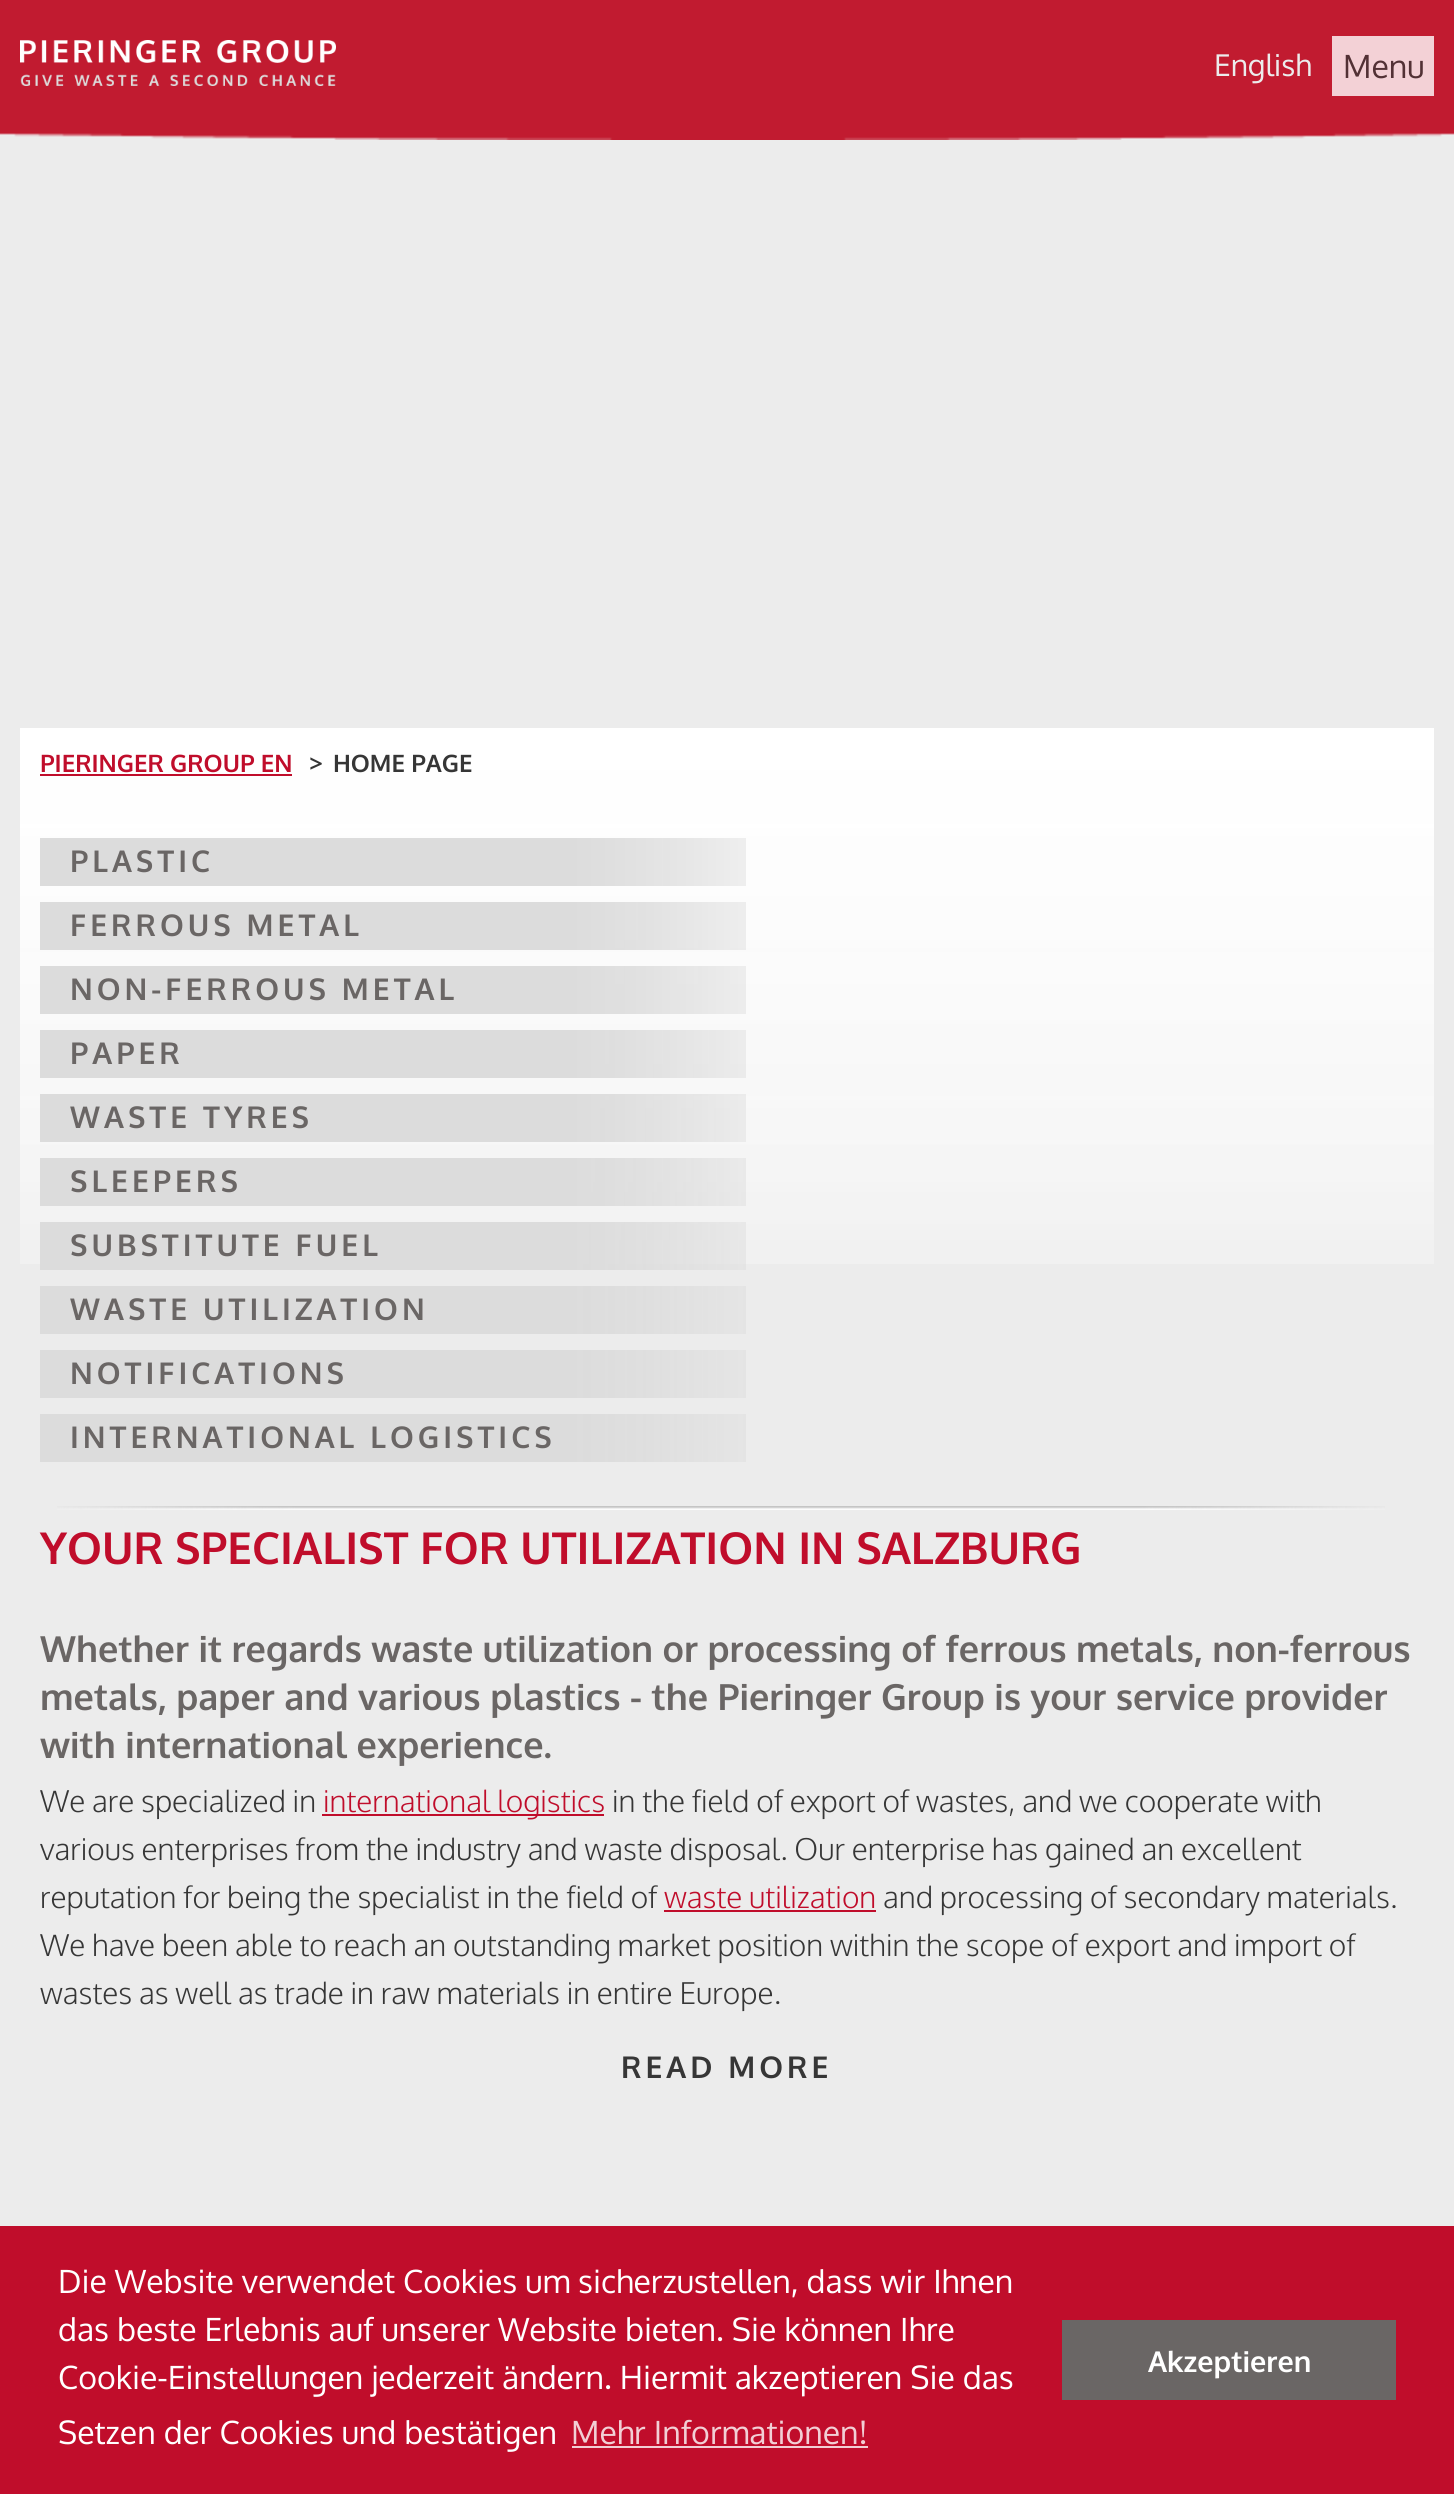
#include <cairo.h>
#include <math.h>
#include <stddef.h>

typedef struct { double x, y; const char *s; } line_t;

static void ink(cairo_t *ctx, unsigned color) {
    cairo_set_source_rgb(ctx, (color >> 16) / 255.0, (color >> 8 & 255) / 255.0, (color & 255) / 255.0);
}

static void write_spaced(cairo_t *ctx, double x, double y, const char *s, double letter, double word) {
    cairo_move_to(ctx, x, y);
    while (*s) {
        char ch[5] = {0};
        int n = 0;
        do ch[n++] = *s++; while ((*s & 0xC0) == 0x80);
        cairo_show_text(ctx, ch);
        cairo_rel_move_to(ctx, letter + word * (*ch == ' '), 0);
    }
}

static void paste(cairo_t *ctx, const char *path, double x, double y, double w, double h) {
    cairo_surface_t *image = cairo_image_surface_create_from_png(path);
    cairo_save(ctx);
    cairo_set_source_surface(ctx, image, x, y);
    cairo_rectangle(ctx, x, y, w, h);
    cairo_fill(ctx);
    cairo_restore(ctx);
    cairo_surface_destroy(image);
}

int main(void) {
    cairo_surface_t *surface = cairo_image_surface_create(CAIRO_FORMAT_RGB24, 1454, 2494);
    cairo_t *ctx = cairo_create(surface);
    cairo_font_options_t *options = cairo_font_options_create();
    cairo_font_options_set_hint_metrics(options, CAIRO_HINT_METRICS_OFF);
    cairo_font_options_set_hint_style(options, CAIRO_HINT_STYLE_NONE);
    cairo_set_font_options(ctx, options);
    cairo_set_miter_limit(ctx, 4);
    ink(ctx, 0xECECEC);
    cairo_paint(ctx);
    paste(ctx, "media/1.png", 0, 0, 1454, 140);
    paste(ctx, "media/2.png", 20, 40, 316, 46);
    cairo_select_font_face(ctx, "Oxygen", CAIRO_FONT_SLANT_NORMAL, CAIRO_FONT_WEIGHT_NORMAL);
    cairo_set_font_size(ctx, 30);
    ink(ctx, 0xECECEC);
    cairo_move_to(ctx, 1214, 76);
    cairo_show_text(ctx, "English");
    ink(ctx, 0xF3D1D6);
    cairo_rectangle(ctx, 1332, 36, 102, 60);
    cairo_fill(ctx);
    cairo_set_font_size(ctx, 32);
    ink(ctx, 0x523135);
    cairo_move_to(ctx, 1343, 78);
    cairo_show_text(ctx, "Menu");
    paste(ctx, "media/3.png", 20, 728, 1414, 536);
    cairo_select_font_face(ctx, "Oxygen", CAIRO_FONT_SLANT_NORMAL, CAIRO_FONT_WEIGHT_BOLD);
    cairo_set_font_size(ctx, 24);
    ink(ctx, 0xC00D2B);
    cairo_move_to(ctx, 40, 772);
    cairo_show_text(ctx, "PIERINGER GROUP EN");
    cairo_rectangle(ctx, 40, 774, 252, 2);
    cairo_fill(ctx);
    ink(ctx, 0x363636);
    cairo_move_to(ctx, 309, 772);
    cairo_show_text(ctx, ">");
    cairo_move_to(ctx, 333, 772);
    cairo_show_text(ctx, "HOME PAGE");
    paste(ctx, "media/4.png", 40, 838, 706, 48);
    cairo_set_font_size(ctx, 30);
    ink(ctx, 0x6A6665);
    write_spaced(ctx, 70, 872, "PLASTIC", 4, 0);
    paste(ctx, "media/5.png", 40, 902, 706, 48);
    write_spaced(ctx, 70, 936, "FERROUS METAL", 4, 0);
    paste(ctx, "media/6.png", 40, 966, 706, 48);
    write_spaced(ctx, 70, 1000, "NON-FERROUS METAL", 4, 0);
    paste(ctx, "media/7.png", 40, 1030, 706, 48);
    write_spaced(ctx, 70, 1064, "PAPER", 4, 0);
    paste(ctx, "media/8.png", 40, 1094, 706, 48);
    write_spaced(ctx, 70, 1128, "WASTE TYRES", 4, 0);
    paste(ctx, "media/9.png", 40, 1158, 706, 48);
    write_spaced(ctx, 70, 1192, "SLEEPERS", 4, 0);
    paste(ctx, "media/10.png", 40, 1222, 706, 48);
    write_spaced(ctx, 70, 1256, "SUBSTITUTE FUEL", 4, 0);
    paste(ctx, "media/11.png", 40, 1286, 706, 48);
    write_spaced(ctx, 70, 1320, "WASTE UTILIZATION", 4, 0);
    paste(ctx, "media/11.png", 40, 1350, 706, 48);
    write_spaced(ctx, 70, 1384, "NOTIFICATIONS", 4, 0);
    paste(ctx, "media/11.png", 40, 1414, 706, 48);
    write_spaced(ctx, 70, 1448, "INTERNATIONAL LOGISTICS", 4, 0);
    paste(ctx, "media/12.png", 57, 1506, 1328, 4);
    cairo_set_font_size(ctx, 44);
    ink(ctx, 0xC00D2B);
    cairo_move_to(ctx, 40, 1564);
    cairo_show_text(ctx, "YOUR SPECIALIST FOR UTILIZATION IN SALZBURG");
    cairo_set_font_size(ctx, 36);
    ink(ctx, 0x6A6665);
    {
        static const line_t items[] = {
            {40, 1662, "Whether it regards waste utilization or processing of ferrous metals, non-ferrous"},
            {40, 1710, "metals, paper and various plastics - the Pieringer Group is your service provider"},
            {40, 1758, "with international experience."},
        };
        for (size_t i = 0; i < sizeof items / sizeof *items; i++) {
            cairo_move_to(ctx, items[i].x, items[i].y);
            cairo_show_text(ctx, items[i].s);
        }
    }
    cairo_select_font_face(ctx, "Oxygen Light", CAIRO_FONT_SLANT_NORMAL, CAIRO_FONT_WEIGHT_NORMAL);
    cairo_set_font_size(ctx, 30);
    ink(ctx, 0x363636);
    cairo_move_to(ctx, 40, 1812);
    cairo_show_text(ctx, "We are specialized in");
    ink(ctx, 0xC00D2B);
    cairo_rectangle(ctx, 322, 1814, 282, 2);
    cairo_fill(ctx);
    cairo_move_to(ctx, 323, 1812);
    cairo_show_text(ctx, "international logistics");
    ink(ctx, 0x363636);
    {
        static const line_t items[] = {
            {612, 1812, "in the field of export of wastes, and we cooperate with"},
            {40, 1860, "various enterprises from the industry and waste disposal. Our enterprise has gained an excellent"},
            {40, 1908, "reputation for being the specialist in the field of"},
        };
        for (size_t i = 0; i < sizeof items / sizeof *items; i++) {
            cairo_move_to(ctx, items[i].x, items[i].y);
            cairo_show_text(ctx, items[i].s);
        }
    }
    ink(ctx, 0xC00D2B);
    cairo_move_to(ctx, 664, 1908);
    cairo_show_text(ctx, "waste utilization");
    cairo_rectangle(ctx, 664, 1910, 212, 2);
    cairo_fill(ctx);
    ink(ctx, 0x363636);
    {
        static const line_t items[] = {
            {883, 1908, "and processing of secondary materials."},
            {40, 1956, "We have been able to reach an outstanding market position within the scope of export and import of"},
            {40, 2004, "wastes as well as trade in raw materials in entire Europe."},
        };
        for (size_t i = 0; i < sizeof items / sizeof *items; i++) {
            cairo_move_to(ctx, items[i].x, items[i].y);
            cairo_show_text(ctx, items[i].s);
        }
    }
    cairo_select_font_face(ctx, "Oxygen", CAIRO_FONT_SLANT_NORMAL, CAIRO_FONT_WEIGHT_BOLD);
    write_spaced(ctx, 621, 2078, "READ MORE", 4, 0);
    ink(ctx, 0xC00D2B);
    cairo_rectangle(ctx, 0, 2226, 1454, 268);
    cairo_fill(ctx);
    cairo_select_font_face(ctx, "Oxygen", CAIRO_FONT_SLANT_NORMAL, CAIRO_FONT_WEIGHT_NORMAL);
    cairo_set_font_size(ctx, 32);
    ink(ctx, 0xFFFFFF);
    {
        static const line_t items[] = {
            {58, 2293, "Die Website verwendet Cookies um sicherzustellen, dass wir Ihnen"},
            {58, 2341, "das beste Erlebnis auf unserer Website bieten. Sie können Ihre"},
            {58, 2389, "Cookie-Einstellungen jederzeit ändern. Hiermit akzeptieren Sie das"},
            {58, 2444, "Setzen der Cookies und bestätigen"},
        };
        for (size_t i = 0; i < sizeof items / sizeof *items; i++) {
            cairo_move_to(ctx, items[i].x, items[i].y);
            cairo_show_text(ctx, items[i].s);
        }
    }
    ink(ctx, 0xF2CFD5);
    cairo_move_to(ctx, 571, 2444);
    cairo_show_text(ctx, "Mehr Informationen!");
    cairo_rectangle(ctx, 572, 2446, 296, 2);
    cairo_fill(ctx);
    ink(ctx, 0x6A6665);
    cairo_rectangle(ctx, 1062, 2320, 334, 80);
    cairo_fill(ctx);
    cairo_select_font_face(ctx, "Oxygen", CAIRO_FONT_SLANT_NORMAL, CAIRO_FONT_WEIGHT_BOLD);
    cairo_set_font_size(ctx, 28.75);
    ink(ctx, 0xFFFFFF);
    cairo_move_to(ctx, 1148, 2372);
    cairo_show_text(ctx, "Akzeptieren");
    cairo_surface_write_to_png(surface, "image.png");
    cairo_font_options_destroy(options);
    cairo_destroy(ctx);
    cairo_surface_destroy(surface);
    return 0;
}
